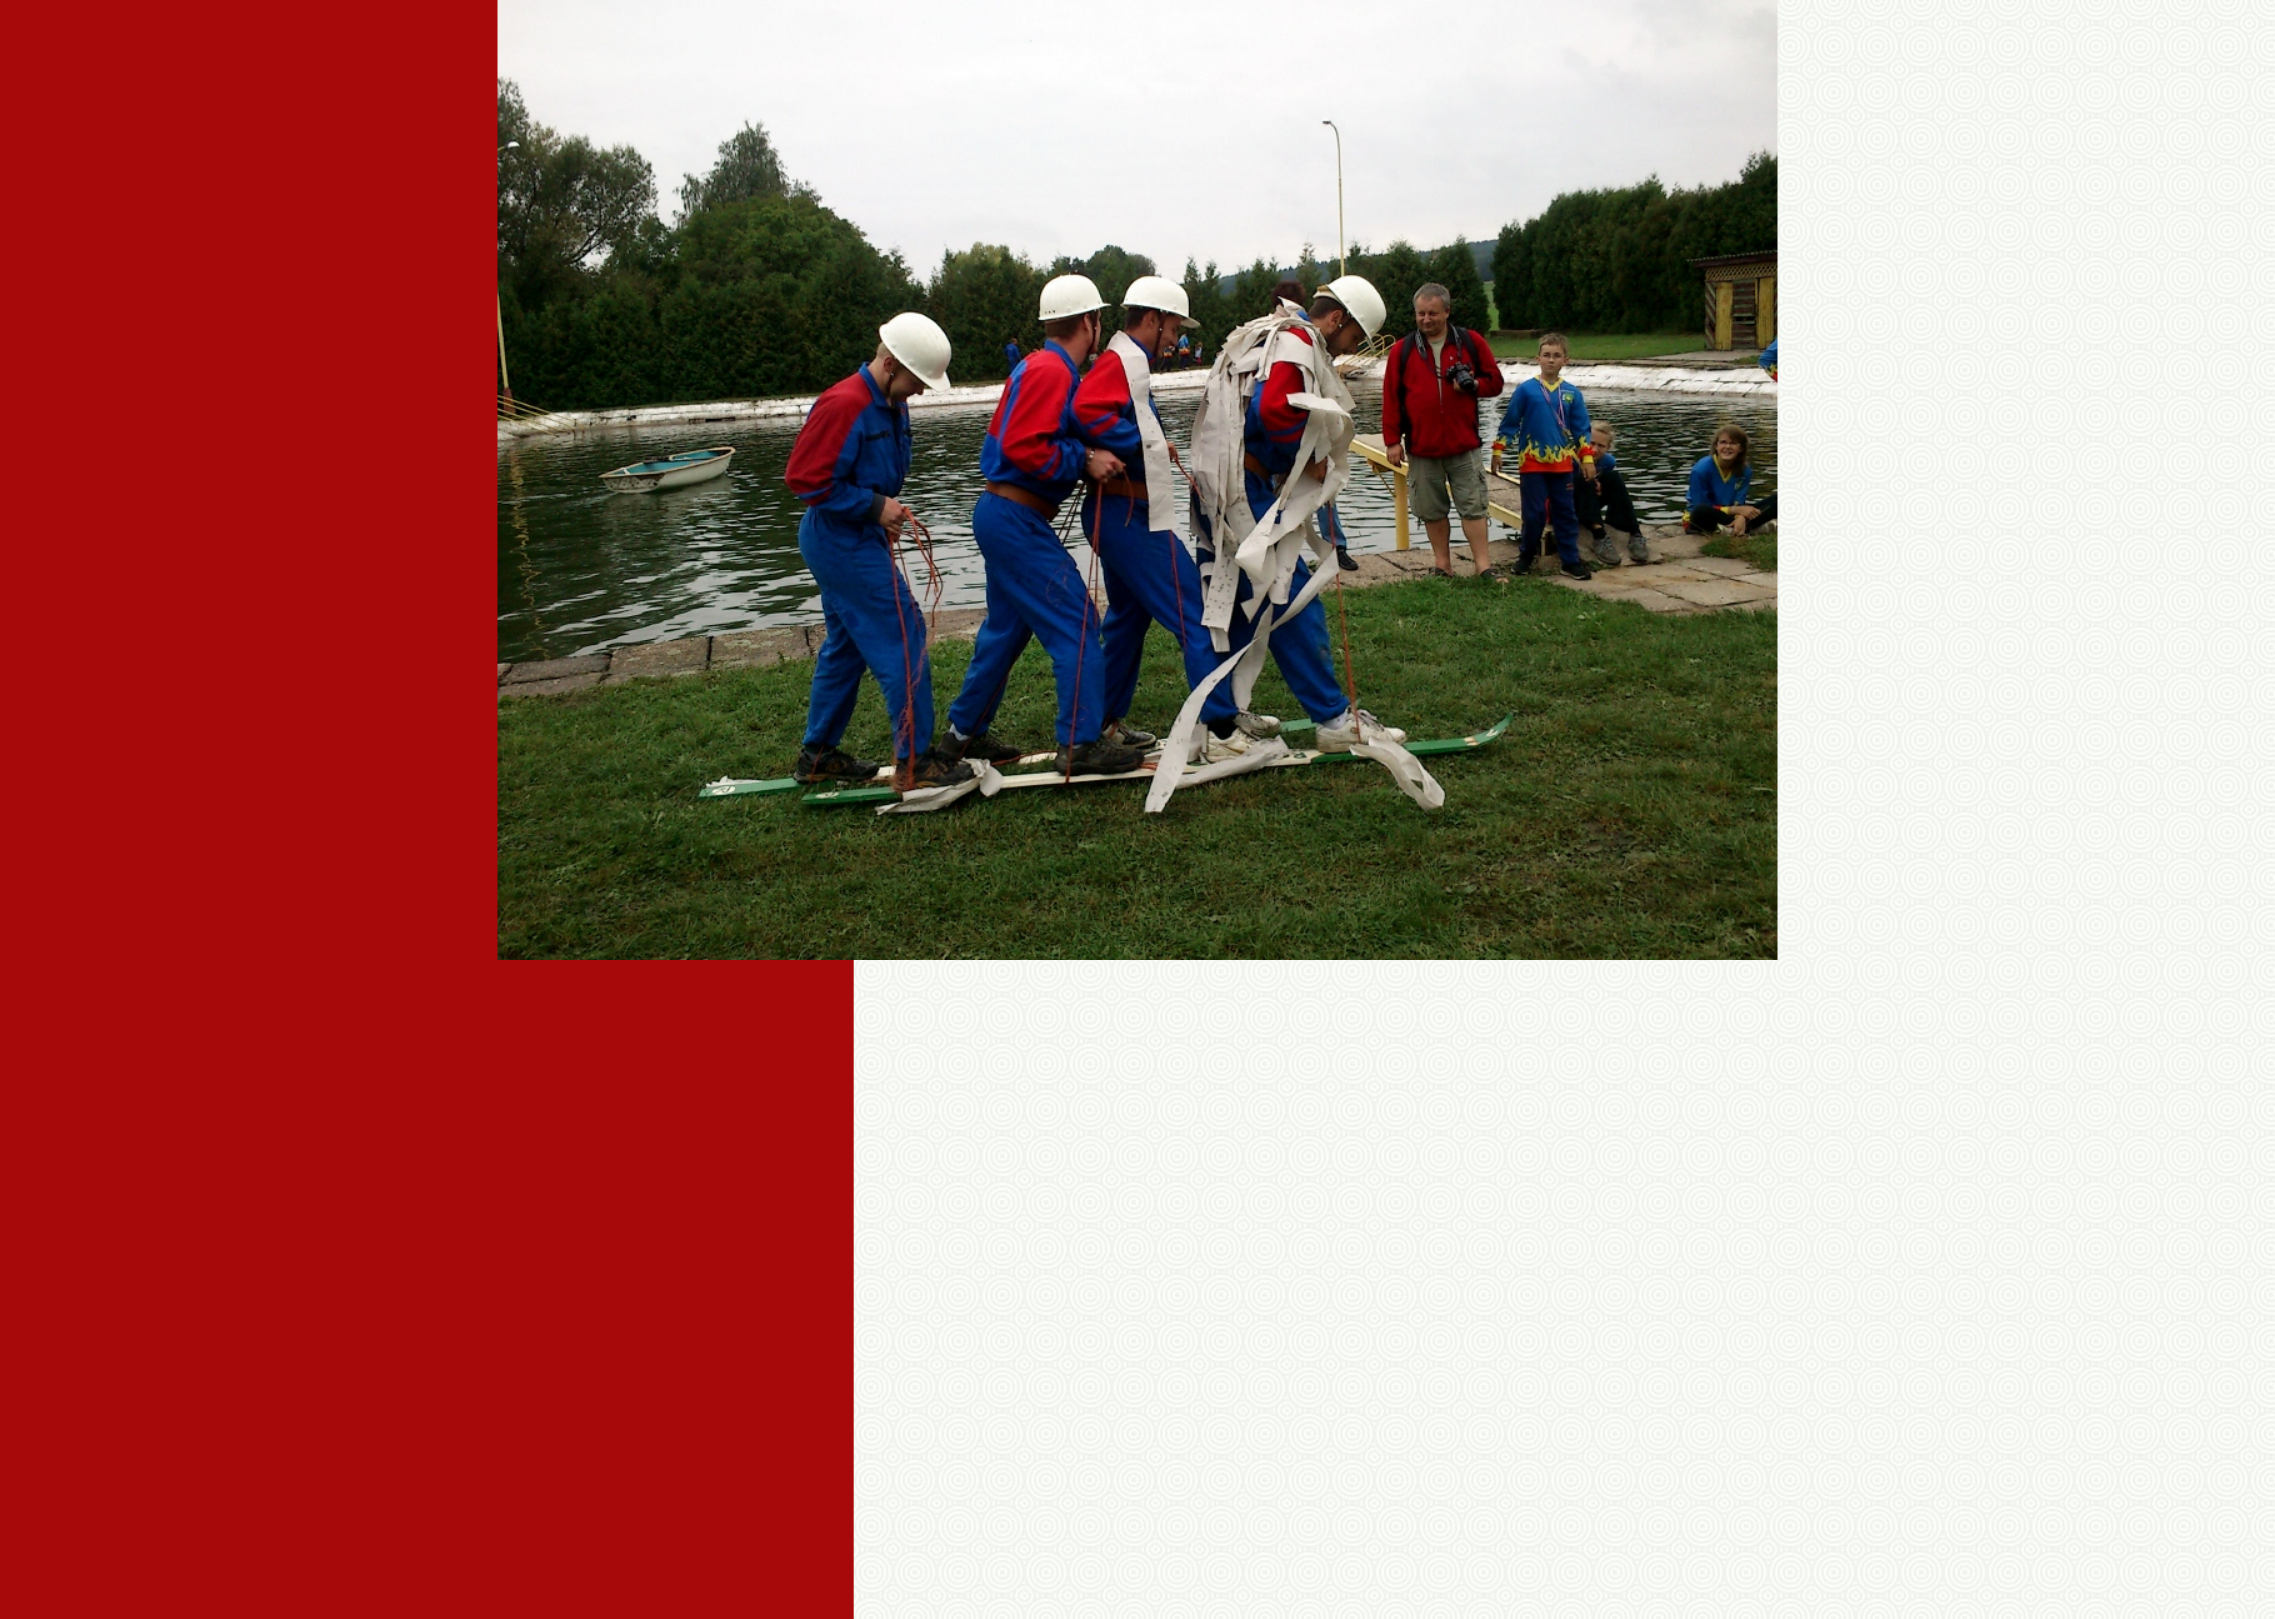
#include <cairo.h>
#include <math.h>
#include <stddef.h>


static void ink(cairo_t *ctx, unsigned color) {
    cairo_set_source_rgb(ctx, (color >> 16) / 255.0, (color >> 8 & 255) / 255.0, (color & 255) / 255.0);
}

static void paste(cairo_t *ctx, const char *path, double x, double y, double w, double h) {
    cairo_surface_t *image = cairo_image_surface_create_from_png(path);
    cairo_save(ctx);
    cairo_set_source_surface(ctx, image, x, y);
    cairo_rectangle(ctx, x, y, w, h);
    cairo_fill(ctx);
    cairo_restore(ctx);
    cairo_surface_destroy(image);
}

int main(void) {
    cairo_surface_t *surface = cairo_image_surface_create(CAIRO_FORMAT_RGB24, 2275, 1619);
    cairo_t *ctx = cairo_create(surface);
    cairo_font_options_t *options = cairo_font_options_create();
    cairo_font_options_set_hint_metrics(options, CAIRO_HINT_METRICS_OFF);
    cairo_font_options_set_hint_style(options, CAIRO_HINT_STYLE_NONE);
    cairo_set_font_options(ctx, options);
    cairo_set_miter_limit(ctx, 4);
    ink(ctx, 0xA7090A);
    cairo_paint(ctx);
    paste(ctx, "media/1.png", 853, 0, 1422, 1619);
    paste(ctx, "media/2.png", 497, 0, 1281, 960);
    cairo_surface_write_to_png(surface, "image.png");
    cairo_font_options_destroy(options);
    cairo_destroy(ctx);
    cairo_surface_destroy(surface);
    return 0;
}
